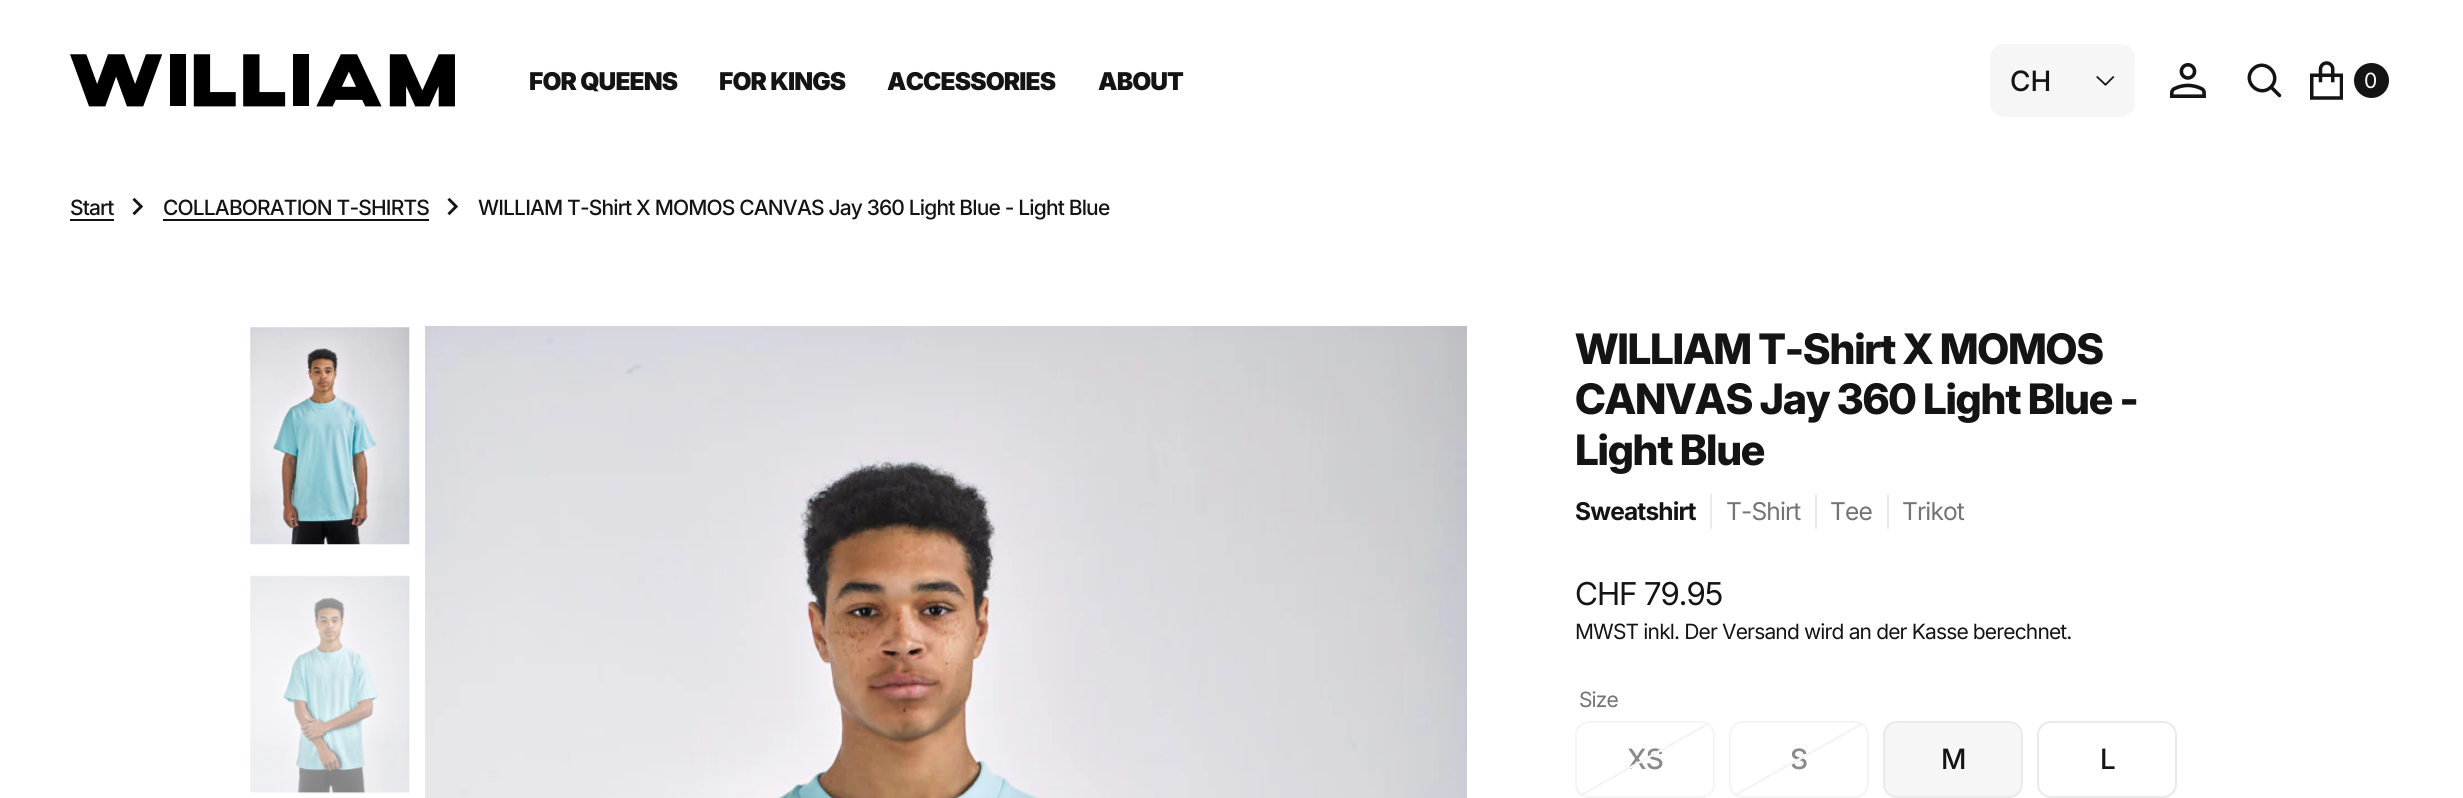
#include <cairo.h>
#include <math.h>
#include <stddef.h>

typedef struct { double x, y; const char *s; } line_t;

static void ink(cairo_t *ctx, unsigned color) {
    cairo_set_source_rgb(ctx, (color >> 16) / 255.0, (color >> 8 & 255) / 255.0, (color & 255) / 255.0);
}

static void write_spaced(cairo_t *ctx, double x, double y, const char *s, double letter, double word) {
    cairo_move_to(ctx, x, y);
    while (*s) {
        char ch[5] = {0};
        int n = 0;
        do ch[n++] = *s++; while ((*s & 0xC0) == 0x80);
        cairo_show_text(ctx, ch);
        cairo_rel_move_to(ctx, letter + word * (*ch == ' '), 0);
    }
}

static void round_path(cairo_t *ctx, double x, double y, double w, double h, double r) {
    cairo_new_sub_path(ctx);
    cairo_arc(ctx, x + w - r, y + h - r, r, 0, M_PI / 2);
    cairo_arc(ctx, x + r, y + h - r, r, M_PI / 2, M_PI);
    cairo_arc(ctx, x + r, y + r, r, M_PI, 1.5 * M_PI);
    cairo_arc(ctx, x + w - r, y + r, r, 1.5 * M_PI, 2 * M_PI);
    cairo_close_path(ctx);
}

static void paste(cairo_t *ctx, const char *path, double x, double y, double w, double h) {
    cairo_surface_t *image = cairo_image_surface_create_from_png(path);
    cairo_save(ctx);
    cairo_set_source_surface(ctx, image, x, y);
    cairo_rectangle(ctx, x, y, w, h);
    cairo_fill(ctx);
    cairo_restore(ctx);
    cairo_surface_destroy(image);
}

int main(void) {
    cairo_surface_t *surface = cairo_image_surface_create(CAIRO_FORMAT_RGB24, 2463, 798);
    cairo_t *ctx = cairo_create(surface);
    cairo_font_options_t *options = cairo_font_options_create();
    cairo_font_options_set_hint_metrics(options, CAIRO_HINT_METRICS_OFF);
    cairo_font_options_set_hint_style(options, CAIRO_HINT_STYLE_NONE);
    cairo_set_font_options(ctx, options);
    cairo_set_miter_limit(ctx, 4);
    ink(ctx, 0xFFFFFF);
    cairo_paint(ctx);
    paste(ctx, "media/1.png", 70, 54, 385, 53);
    cairo_select_font_face(ctx, "Inter Black", CAIRO_FONT_SLANT_NORMAL, CAIRO_FONT_WEIGHT_NORMAL);
    cairo_set_font_size(ctx, 24.5);
    ink(ctx, 0x141414);
    {
        static const line_t items[] = {
            {529, 90, "FOR QUEENS"},
            {719, 90, "FOR KINGS"},
            {887, 90, "ACCESSORIES"},
            {1098, 90, "ABOUT"},
        };
        for (size_t i = 0; i < sizeof items / sizeof *items; i++) {
            write_spaced(ctx, items[i].x, items[i].y, items[i].s, -0.85, 0);
        }
    }
    ink(ctx, 0xF6F6F6);
    round_path(ctx, 1990, 44, 145, 73, 14);
    cairo_fill(ctx);
    cairo_select_font_face(ctx, "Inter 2 Medium", CAIRO_FONT_SLANT_NORMAL, CAIRO_FONT_WEIGHT_NORMAL);
    cairo_set_font_size(ctx, 28);
    ink(ctx, 0x141414);
    cairo_move_to(ctx, 2010, 91);
    cairo_show_text(ctx, "CH");
    cairo_new_path(ctx);
    cairo_move_to(ctx, 2105.5, 83.5);
    cairo_line_to(ctx, 2113, 76);
    cairo_line_to(ctx, 2114.5, 77);
    cairo_line_to(ctx, 2105.5, 86);
    cairo_line_to(ctx, 2096, 77);
    cairo_line_to(ctx, 2097.5, 76);
    cairo_close_path(ctx);
    cairo_fill(ctx);
    paste(ctx, "media/2.png", 2170, 63, 36, 35);
    cairo_new_path(ctx);
    cairo_move_to(ctx, 2279.5, 95.5);
    cairo_line_to(ctx, 2271, 87);
    cairo_move_to(ctx, 2271, 87);
    cairo_curve_to(ctx, 2282.5, 75, 2265, 57.5, 2253, 69);
    cairo_curve_to(ctx, 2241.5, 81, 2259, 98.5, 2271, 87);
    cairo_close_path(ctx);
    cairo_set_line_width(ctx, 3.5);
    cairo_set_line_cap(ctx, CAIRO_LINE_CAP_ROUND);
    cairo_set_line_join(ctx, CAIRO_LINE_JOIN_ROUND);
    cairo_stroke(ctx);
    paste(ctx, "media/3.png", 2310, 61, 33, 39);
    cairo_arc(ctx, 2371.5, 80.5, 17.5, 0, 2 * M_PI);
    cairo_fill(ctx);
    cairo_select_font_face(ctx, "Inter", CAIRO_FONT_SLANT_NORMAL, CAIRO_FONT_WEIGHT_NORMAL);
    cairo_set_font_size(ctx, 21);
    ink(ctx, 0xFFFFFF);
    write_spaced(ctx, 2364, 88, "0", -0.85, 0);
    cairo_select_font_face(ctx, "Inter Medium", CAIRO_FONT_SLANT_NORMAL, CAIRO_FONT_WEIGHT_NORMAL);
    ink(ctx, 0x141414);
    write_spaced(ctx, 70, 215, "Start", -0.85, 0);
    cairo_rectangle(ctx, 70, 219, 44, 2);
    cairo_fill(ctx);
    paste(ctx, "media/4.png", 132, 197, 12, 19);
    write_spaced(ctx, 163, 215, "COLLABORATION T-SHIRTS", -0.85, 0);
    cairo_rectangle(ctx, 163, 219, 266, 2);
    cairo_fill(ctx);
    paste(ctx, "media/4.png", 447, 197, 12, 19);
    write_spaced(ctx, 478, 215, "WILLIAM T-Shirt X MOMOS CANVAS Jay 360 Light Blue - Light Blue", -0.85, 0);
    paste(ctx, "media/5.png", 250, 327, 160, 218);
    paste(ctx, "media/6.png", 250, 575, 160, 219);
    paste(ctx, "media/7.png", 425, 326, 1042, 472);
    cairo_select_font_face(ctx, "Inter ExtraBold", CAIRO_FONT_SLANT_NORMAL, CAIRO_FONT_WEIGHT_NORMAL);
    cairo_set_font_size(ctx, 42);
    {
        static const line_t items[] = {
            {1575, 364, "WILLIAM T-Shirt X MOMOS"},
            {1575, 414, "CANVAS Jay 360 Light Blue -"},
            {1575, 465, "Light Blue"},
        };
        for (size_t i = 0; i < sizeof items / sizeof *items; i++) {
            write_spaced(ctx, items[i].x, items[i].y, items[i].s, -1.25, 0);
        }
    }
    cairo_select_font_face(ctx, "Inter", CAIRO_FONT_SLANT_NORMAL, CAIRO_FONT_WEIGHT_BOLD);
    cairo_set_font_size(ctx, 24.5);
    write_spaced(ctx, 1575, 520, "Sweatshirt", -0.85, 0);
    ink(ctx, 0xEAEAEA);
    cairo_rectangle(ctx, 1710, 494, 2, 35);
    cairo_fill(ctx);
    cairo_select_font_face(ctx, "Inter", CAIRO_FONT_SLANT_NORMAL, CAIRO_FONT_WEIGHT_NORMAL);
    ink(ctx, 0x737373);
    write_spaced(ctx, 1726, 520, "T-Shirt", -0.85, 0);
    ink(ctx, 0xEAEAEA);
    cairo_rectangle(ctx, 1815, 494, 2, 35);
    cairo_fill(ctx);
    ink(ctx, 0x737373);
    write_spaced(ctx, 1830, 520, "Tee", -0.85, 0);
    ink(ctx, 0xEAEAEA);
    cairo_rectangle(ctx, 1887, 494, 2, 35);
    cairo_fill(ctx);
    ink(ctx, 0x737373);
    write_spaced(ctx, 1902, 520, "Trikot", -0.85, 0);
    cairo_select_font_face(ctx, "Inter 2", CAIRO_FONT_SLANT_NORMAL, CAIRO_FONT_WEIGHT_NORMAL);
    cairo_set_font_size(ctx, 31.5);
    ink(ctx, 0x141414);
    write_spaced(ctx, 1575, 605, "CHF 79.95", -1, 0);
    cairo_select_font_face(ctx, "Inter", CAIRO_FONT_SLANT_NORMAL, CAIRO_FONT_WEIGHT_NORMAL);
    cairo_set_font_size(ctx, 21);
    write_spaced(ctx, 1575, 639, "MWST inkl. Der Versand wird an der Kasse berechnet.", -0.85, 0);
    ink(ctx, 0x737373);
    write_spaced(ctx, 1579, 707, "Size", -0.85, 0);
    round_path(ctx, 1576, 722, 138, 75, 13);
    ink(ctx, 0xF5F5F5);
    cairo_set_line_width(ctx, 2);
    cairo_set_line_cap(ctx, CAIRO_LINE_CAP_BUTT);
    cairo_set_line_join(ctx, CAIRO_LINE_JOIN_MITER);
    cairo_stroke(ctx);
    cairo_select_font_face(ctx, "Inter Medium", CAIRO_FONT_SLANT_NORMAL, CAIRO_FONT_WEIGHT_NORMAL);
    cairo_set_font_size(ctx, 28);
    ink(ctx, 0x8A8A8A);
    write_spaced(ctx, 1627, 769, "XS", -0.85, 0);
    ink(ctx, 0xF5F5F5);
    cairo_new_path(ctx);
    cairo_move_to(ctx, 1577, 796);
    cairo_line_to(ctx, 1707, 723);
    cairo_line_to(ctx, 1712, 723);
    cairo_line_to(ctx, 1582, 796);
    cairo_close_path(ctx);
    cairo_fill(ctx);
    round_path(ctx, 1730, 722, 138, 75, 13);
    cairo_stroke(ctx);
    cairo_select_font_face(ctx, "Inter 2 Medium", CAIRO_FONT_SLANT_NORMAL, CAIRO_FONT_WEIGHT_NORMAL);
    ink(ctx, 0x8A8A8A);
    write_spaced(ctx, 1790, 769, "S", -0.85, 0);
    ink(ctx, 0xF5F5F5);
    cairo_new_path(ctx);
    cairo_move_to(ctx, 1731, 796);
    cairo_line_to(ctx, 1861, 723);
    cairo_line_to(ctx, 1866, 723);
    cairo_line_to(ctx, 1736, 796);
    cairo_close_path(ctx);
    cairo_fill(ctx);
    ink(ctx, 0xF6F6F6);
    round_path(ctx, 1884, 722, 138, 75, 13);
    cairo_fill_preserve(ctx);
    ink(ctx, 0xEAEAEA);
    cairo_stroke(ctx);
    ink(ctx, 0x141414);
    write_spaced(ctx, 1941, 769, "M", -0.85, 0);
    round_path(ctx, 2038, 722, 138, 75, 13);
    ink(ctx, 0xEAEAEA);
    cairo_stroke(ctx);
    ink(ctx, 0x141414);
    write_spaced(ctx, 2100, 769, "L", -0.85, 0);
    cairo_surface_write_to_png(surface, "image.png");
    cairo_font_options_destroy(options);
    cairo_destroy(ctx);
    cairo_surface_destroy(surface);
    return 0;
}
